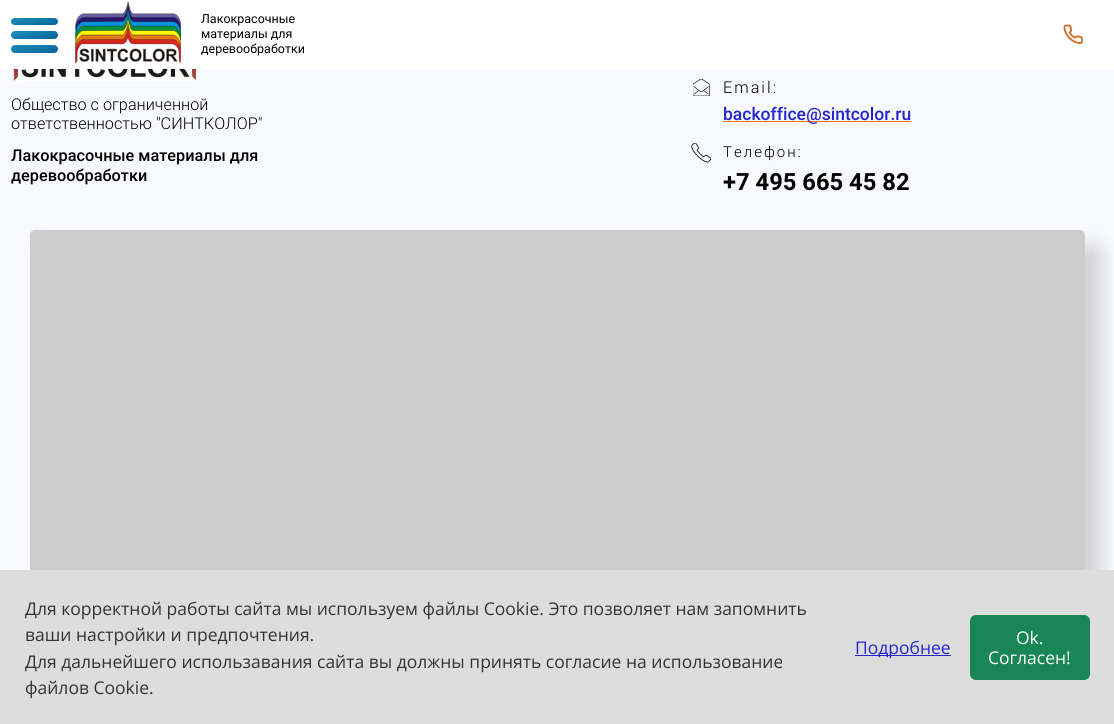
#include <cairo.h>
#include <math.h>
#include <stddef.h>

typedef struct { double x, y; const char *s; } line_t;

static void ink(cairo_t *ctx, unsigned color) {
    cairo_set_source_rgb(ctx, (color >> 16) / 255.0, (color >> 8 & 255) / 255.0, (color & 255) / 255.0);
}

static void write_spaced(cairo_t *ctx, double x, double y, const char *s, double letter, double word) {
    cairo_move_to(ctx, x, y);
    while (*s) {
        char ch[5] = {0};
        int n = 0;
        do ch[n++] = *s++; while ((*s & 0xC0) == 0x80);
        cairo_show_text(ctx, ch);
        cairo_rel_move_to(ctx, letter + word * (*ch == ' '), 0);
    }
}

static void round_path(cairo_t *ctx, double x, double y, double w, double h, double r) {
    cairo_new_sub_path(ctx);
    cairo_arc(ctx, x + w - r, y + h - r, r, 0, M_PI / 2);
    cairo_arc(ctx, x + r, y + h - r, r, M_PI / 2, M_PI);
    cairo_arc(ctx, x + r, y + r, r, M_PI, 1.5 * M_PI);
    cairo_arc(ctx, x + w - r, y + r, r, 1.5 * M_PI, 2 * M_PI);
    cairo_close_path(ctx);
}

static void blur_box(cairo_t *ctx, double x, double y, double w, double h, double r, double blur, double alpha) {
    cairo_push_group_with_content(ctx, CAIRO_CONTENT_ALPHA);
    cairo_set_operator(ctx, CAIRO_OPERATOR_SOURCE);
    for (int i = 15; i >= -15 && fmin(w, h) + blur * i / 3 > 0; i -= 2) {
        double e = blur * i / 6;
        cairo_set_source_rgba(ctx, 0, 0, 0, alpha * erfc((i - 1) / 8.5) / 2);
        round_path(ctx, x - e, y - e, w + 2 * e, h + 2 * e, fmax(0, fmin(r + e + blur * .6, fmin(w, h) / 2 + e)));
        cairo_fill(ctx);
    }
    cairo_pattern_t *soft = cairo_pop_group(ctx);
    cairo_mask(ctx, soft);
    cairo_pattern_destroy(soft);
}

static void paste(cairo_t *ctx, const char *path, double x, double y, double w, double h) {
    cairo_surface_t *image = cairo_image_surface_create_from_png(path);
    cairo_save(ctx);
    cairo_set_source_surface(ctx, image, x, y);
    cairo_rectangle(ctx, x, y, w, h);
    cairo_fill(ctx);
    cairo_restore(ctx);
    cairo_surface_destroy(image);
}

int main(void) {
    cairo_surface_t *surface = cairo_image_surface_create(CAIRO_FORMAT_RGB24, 1114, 724);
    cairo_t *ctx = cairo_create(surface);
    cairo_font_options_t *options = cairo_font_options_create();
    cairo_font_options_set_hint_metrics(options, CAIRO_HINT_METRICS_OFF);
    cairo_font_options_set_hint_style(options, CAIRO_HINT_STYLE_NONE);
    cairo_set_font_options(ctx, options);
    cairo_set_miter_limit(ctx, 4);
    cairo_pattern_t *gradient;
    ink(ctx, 0xF8F9FC);
    cairo_paint(ctx);
    ink(ctx, 0xFFFFFF);
    cairo_rectangle(ctx, 0, 0, 1114, 69);
    cairo_fill(ctx);
    gradient = cairo_pattern_create_linear(33, 14, 36, 29);
    cairo_pattern_add_color_stop_rgba(gradient, 0, 0.102, 0.561, 0.714, 1);
    cairo_pattern_add_color_stop_rgba(gradient, 1, 0.039, 0.388, 0.612, 1);
    cairo_set_source(ctx, gradient);
    cairo_pattern_destroy(gradient);
    round_path(ctx, 11, 18, 47, 7, 3.5);
    cairo_fill(ctx);
    gradient = cairo_pattern_create_linear(33, 28, 36, 42);
    cairo_pattern_add_color_stop_rgba(gradient, 0, 0.102, 0.561, 0.714, 1);
    cairo_pattern_add_color_stop_rgba(gradient, 1, 0.039, 0.388, 0.612, 1);
    cairo_set_source(ctx, gradient);
    cairo_pattern_destroy(gradient);
    round_path(ctx, 11, 31, 47, 8, 4);
    cairo_fill(ctx);
    gradient = cairo_pattern_create_linear(33, 41, 36, 56);
    cairo_pattern_add_color_stop_rgba(gradient, 0, 0.102, 0.561, 0.714, 1);
    cairo_pattern_add_color_stop_rgba(gradient, 1, 0.039, 0.388, 0.612, 1);
    cairo_set_source(ctx, gradient);
    cairo_pattern_destroy(gradient);
    round_path(ctx, 11, 45, 47, 8, 4);
    cairo_fill(ctx);
    paste(ctx, "media/1.png", 75, 1, 106, 63);
    cairo_select_font_face(ctx, "Roboto", CAIRO_FONT_SLANT_NORMAL, CAIRO_FONT_WEIGHT_NORMAL);
    cairo_set_font_size(ctx, 12.5);
    ink(ctx, 0x000000);
    {
        static const line_t items[] = {
            {201, 23, "Лакокрасочные"},
            {201, 38, "материалы для"},
            {201, 53, "деревообработки"},
        };
        for (size_t i = 0; i < sizeof items / sizeof *items; i++) {
            cairo_move_to(ctx, items[i].x, items[i].y);
            cairo_show_text(ctx, items[i].s);
        }
    }
    paste(ctx, "media/2.png", 1063, 24, 20, 20);
    paste(ctx, "media/3.png", 13, 69, 184, 12);
    cairo_select_font_face(ctx, "Roboto Light", CAIRO_FONT_SLANT_NORMAL, CAIRO_FONT_WEIGHT_NORMAL);
    cairo_set_font_size(ctx, 16.25);
    cairo_move_to(ctx, 11, 110);
    cairo_show_text(ctx, "Общество с ограниченной");
    cairo_move_to(ctx, 11, 129);
    cairo_show_text(ctx, "ответственностью \"CИНТКОЛОР\"");
    cairo_select_font_face(ctx, "Roboto Medium", CAIRO_FONT_SLANT_NORMAL, CAIRO_FONT_WEIGHT_NORMAL);
    cairo_move_to(ctx, 11, 161);
    cairo_show_text(ctx, "Лакокрасочные материалы для");
    cairo_move_to(ctx, 11, 181);
    cairo_show_text(ctx, "деревообработки");
    paste(ctx, "media/4.png", 693, 79, 17, 17);
    cairo_select_font_face(ctx, "Roboto Light", CAIRO_FONT_SLANT_NORMAL, CAIRO_FONT_WEIGHT_NORMAL);
    write_spaced(ctx, 723, 93, "Email:", 2, 0);
    ink(ctx, 0xF77416);
    cairo_rectangle(ctx, 723, 121, 188, 1);
    cairo_fill(ctx);
    cairo_select_font_face(ctx, "Roboto Medium", CAIRO_FONT_SLANT_NORMAL, CAIRO_FONT_WEIGHT_NORMAL);
    cairo_set_font_size(ctx, 17.5);
    ink(ctx, 0x2525CF);
    cairo_move_to(ctx, 723, 120);
    cairo_show_text(ctx, "backoffice@sintcolor.ru");
    paste(ctx, "media/5.png", 691, 143, 20, 20);
    cairo_select_font_face(ctx, "Roboto Light", CAIRO_FONT_SLANT_NORMAL, CAIRO_FONT_WEIGHT_NORMAL);
    cairo_set_font_size(ctx, 15);
    ink(ctx, 0x000000);
    write_spaced(ctx, 723, 157, "Телефон:", 2, 0);
    cairo_select_font_face(ctx, "Roboto", CAIRO_FONT_SLANT_NORMAL, CAIRO_FONT_WEIGHT_BOLD);
    cairo_set_font_size(ctx, 23.75);
    cairo_move_to(ctx, 723, 190);
    cairo_show_text(ctx, "+7 495 665 45 82");
    ink(ctx, 0x000000);
    blur_box(ctx, 46, 246, 1055, 438, 5, 9.5, 0.16);
    ink(ctx, 0xCCCCCC);
    round_path(ctx, 30, 230, 1055, 438, 5);
    cairo_fill(ctx);
    ink(ctx, 0xDDDDDD);
    cairo_rectangle(ctx, 0, 570, 1114, 154);
    cairo_fill(ctx);
    cairo_select_font_face(ctx, "Open Sans", CAIRO_FONT_SLANT_NORMAL, CAIRO_FONT_WEIGHT_NORMAL);
    cairo_set_font_size(ctx, 17.5);
    ink(ctx, 0x333333);
    {
        static const line_t items[] = {
            {25, 615, "Для корректной работы сайта мы используем файлы Cookie. Это позволяет нам запомнить"},
            {25, 641, "ваши настройки и предпочтения."},
            {25, 668, "Для дальнейшего использавания сайта вы должны принять согласие на использование"},
            {25, 694, "файлов Cookie."},
        };
        for (size_t i = 0; i < sizeof items / sizeof *items; i++) {
            cairo_move_to(ctx, items[i].x, items[i].y);
            cairo_show_text(ctx, items[i].s);
        }
    }
    ink(ctx, 0x2525CF);
    cairo_rectangle(ctx, 855, 655, 96, 1);
    cairo_fill(ctx);
    cairo_move_to(ctx, 855, 654);
    cairo_show_text(ctx, "Подробнее");
    ink(ctx, 0x198754);
    round_path(ctx, 970, 615, 120, 65, 6);
    cairo_fill(ctx);
    ink(ctx, 0xFFFFFF);
    cairo_move_to(ctx, 1016, 644);
    cairo_show_text(ctx, "Ok.");
    cairo_move_to(ctx, 988, 664);
    cairo_show_text(ctx, "Согласен!");
    cairo_surface_write_to_png(surface, "image.png");
    cairo_font_options_destroy(options);
    cairo_destroy(ctx);
    cairo_surface_destroy(surface);
    return 0;
}
